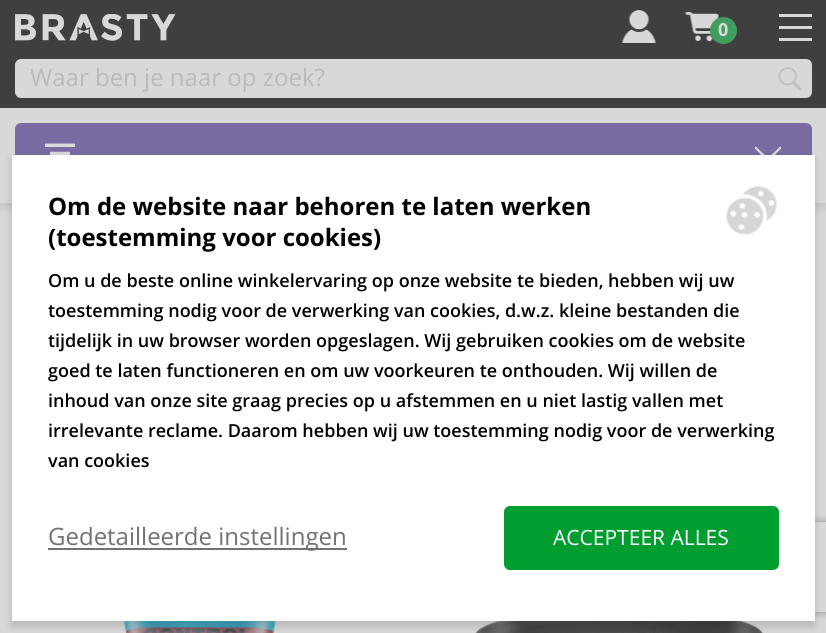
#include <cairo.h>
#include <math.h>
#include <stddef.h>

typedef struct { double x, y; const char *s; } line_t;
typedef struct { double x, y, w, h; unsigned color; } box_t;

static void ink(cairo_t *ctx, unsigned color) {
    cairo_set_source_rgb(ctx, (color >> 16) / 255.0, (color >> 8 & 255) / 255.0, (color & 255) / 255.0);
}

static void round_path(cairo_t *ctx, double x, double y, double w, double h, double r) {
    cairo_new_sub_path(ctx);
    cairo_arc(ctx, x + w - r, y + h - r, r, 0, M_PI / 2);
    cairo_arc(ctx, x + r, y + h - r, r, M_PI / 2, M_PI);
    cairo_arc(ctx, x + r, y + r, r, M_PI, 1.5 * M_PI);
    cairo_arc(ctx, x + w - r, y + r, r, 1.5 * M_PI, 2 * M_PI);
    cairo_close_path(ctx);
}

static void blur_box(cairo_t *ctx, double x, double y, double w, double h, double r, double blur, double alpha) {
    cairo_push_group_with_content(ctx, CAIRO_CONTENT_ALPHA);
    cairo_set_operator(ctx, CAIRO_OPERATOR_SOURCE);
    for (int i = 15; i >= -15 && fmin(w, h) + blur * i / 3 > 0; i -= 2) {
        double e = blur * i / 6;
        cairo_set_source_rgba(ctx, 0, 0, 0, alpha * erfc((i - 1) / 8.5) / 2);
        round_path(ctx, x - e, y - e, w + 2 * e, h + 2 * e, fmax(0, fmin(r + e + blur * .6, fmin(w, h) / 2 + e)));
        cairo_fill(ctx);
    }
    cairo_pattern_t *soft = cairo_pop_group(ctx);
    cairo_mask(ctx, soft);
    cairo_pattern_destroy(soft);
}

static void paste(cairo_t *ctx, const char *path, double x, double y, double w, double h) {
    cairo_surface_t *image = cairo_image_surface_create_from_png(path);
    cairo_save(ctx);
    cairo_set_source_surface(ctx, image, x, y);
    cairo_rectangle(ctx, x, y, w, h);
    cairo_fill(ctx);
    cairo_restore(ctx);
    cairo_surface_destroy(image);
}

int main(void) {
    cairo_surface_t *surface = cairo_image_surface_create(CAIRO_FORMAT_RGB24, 826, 633);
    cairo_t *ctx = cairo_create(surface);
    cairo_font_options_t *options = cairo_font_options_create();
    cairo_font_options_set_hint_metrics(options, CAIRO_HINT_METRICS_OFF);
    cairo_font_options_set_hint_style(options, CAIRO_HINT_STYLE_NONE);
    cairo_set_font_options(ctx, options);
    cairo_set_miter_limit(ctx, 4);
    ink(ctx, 0xD8D8D8);
    cairo_paint(ctx);
    ink(ctx, 0x3F3F3F);
    blur_box(ctx, 0, 113, 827, 94, 0, 4.5, 0.16);
    ink(ctx, 0x3F3F3F);
    cairo_rectangle(ctx, 0, 0, 826, 108);
    cairo_fill(ctx);
    paste(ctx, "media/1.png", 15, 14, 161, 27);
    paste(ctx, "media/2.png", 622, 10, 34, 33);
    paste(ctx, "media/3.png", 685, 12, 34, 30);
    ink(ctx, 0x3F9E5D);
    cairo_arc(ctx, 723.5, 30.5, 13.5, 0, 2 * M_PI);
    cairo_fill(ctx);
    cairo_select_font_face(ctx, "Open Sans", CAIRO_FONT_SLANT_NORMAL, CAIRO_FONT_WEIGHT_BOLD);
    cairo_set_font_size(ctx, 18);
    ink(ctx, 0xD8D8D8);
    cairo_move_to(ctx, 718, 36);
    cairo_show_text(ctx, "0");
    {
        static const box_t items[] = {
            {779, 26, 33, 3, 0xD8D8D8},
            {779, 14, 33, 3, 0xD8D8D8},
            {779, 38, 33, 3, 0xD8D8D8},
        };
        for (size_t i = 0; i < sizeof items / sizeof *items; i++) {
            ink(ctx, items[i].color);
            cairo_rectangle(ctx, items[i].x, items[i].y, items[i].w, items[i].h);
            cairo_fill(ctx);
        }
    }
    round_path(ctx, 15, 59, 797, 39, 6);
    cairo_fill(ctx);
    cairo_select_font_face(ctx, "Open Sans", CAIRO_FONT_SLANT_NORMAL, CAIRO_FONT_WEIGHT_NORMAL);
    cairo_set_font_size(ctx, 24);
    ink(ctx, 0xBABABA);
    cairo_move_to(ctx, 30, 86);
    cairo_show_text(ctx, "Waar ben je naar op zoek?");
    ink(ctx, 0xD8D8D8);
    cairo_rectangle(ctx, 809, 60, 1, 1);
    cairo_fill(ctx);
    paste(ctx, "media/4.png", 778, 67, 24, 24);
    cairo_rectangle(ctx, 0, 108, 826, 95);
    cairo_fill(ctx);
    ink(ctx, 0x7A6BA2);
    round_path(ctx, 15, 123, 797, 65, 6);
    cairo_fill(ctx);
    paste(ctx, "media/5.png", 45, 143, 30, 12);
    paste(ctx, "media/6.png", 754, 146, 28, 9);
    paste(ctx, "media/7.png", 122, 621, 156, 12);
    paste(ctx, "media/8.png", 475, 621, 289, 12);
    ink(ctx, 0x000000);
    blur_box(ctx, 12, 159, 803, 467, 0, 4.5, 0.16);
    cairo_save(ctx);
    cairo_set_fill_rule(ctx, CAIRO_FILL_RULE_EVEN_ODD);
    cairo_new_path(ctx);
    cairo_move_to(ctx, 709, 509);
    cairo_line_to(ctx, 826, 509);
    cairo_line_to(ctx, 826, 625);
    cairo_line_to(ctx, 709, 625);
    cairo_close_path(ctx);
    cairo_move_to(ctx, 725, 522);
    cairo_line_to(ctx, 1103, 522);
    cairo_curve_to(ctx, 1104.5, 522, 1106, 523.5, 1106, 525);
    cairo_line_to(ctx, 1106, 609);
    cairo_curve_to(ctx, 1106, 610.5, 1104.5, 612, 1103, 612);
    cairo_line_to(ctx, 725, 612);
    cairo_curve_to(ctx, 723.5, 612, 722, 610.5, 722, 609);
    cairo_line_to(ctx, 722, 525);
    cairo_curve_to(ctx, 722, 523.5, 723.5, 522, 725, 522);
    cairo_close_path(ctx);
    cairo_clip(ctx);
    ink(ctx, 0x8C8C8C);
    blur_box(ctx, 722, 522, 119, 90, 3, 4, 1);
    cairo_restore(ctx);
    ink(ctx, 0xFFFFFF);
    cairo_rectangle(ctx, 12, 155, 803, 466);
    cairo_fill(ctx);
    cairo_select_font_face(ctx, "Open Sans", CAIRO_FONT_SLANT_NORMAL, CAIRO_FONT_WEIGHT_BOLD);
    ink(ctx, 0x000000);
    cairo_move_to(ctx, 48, 215);
    cairo_show_text(ctx, "Om de website naar behoren te laten werken");
    paste(ctx, "media/9.png", 726, 186, 51, 49);
    cairo_move_to(ctx, 48, 246);
    cairo_show_text(ctx, "(toestemming voor cookies)");
    cairo_select_font_face(ctx, "Open Sans SemiBold", CAIRO_FONT_SLANT_NORMAL, CAIRO_FONT_WEIGHT_NORMAL);
    cairo_set_font_size(ctx, 18);
    {
        static const line_t items[] = {
            {48, 287, "Om u de beste online winkelervaring op onze website te bieden, hebben wij uw"},
            {48, 317, "toestemming nodig voor de verwerking van cookies, d.w.z. kleine bestanden die"},
            {48, 347, "tijdelijk in uw browser worden opgeslagen. Wij gebruiken cookies om de website"},
            {48, 377, "goed te laten functioneren en om uw voorkeuren te onthouden. Wij willen de"},
            {48, 407, "inhoud van onze site graag precies op u afstemmen en u niet lastig vallen met"},
            {48, 437, "irrelevante reclame. Daarom hebben wij uw toestemming nodig voor de verwerking"},
            {48, 467, "van cookies"},
        };
        for (size_t i = 0; i < sizeof items / sizeof *items; i++) {
            cairo_move_to(ctx, items[i].x, items[i].y);
            cairo_show_text(ctx, items[i].s);
        }
    }
    ink(ctx, 0x727272);
    cairo_rectangle(ctx, 48, 548, 299, 2);
    cairo_fill(ctx);
    cairo_select_font_face(ctx, "Open Sans", CAIRO_FONT_SLANT_NORMAL, CAIRO_FONT_WEIGHT_NORMAL);
    cairo_set_font_size(ctx, 24);
    cairo_move_to(ctx, 48, 545);
    cairo_show_text(ctx, "Gedetailleerde instellingen");
    ink(ctx, 0x009E31);
    round_path(ctx, 505, 507, 273, 62, 5);
    cairo_fill_preserve(ctx);
    cairo_stroke(ctx);
    cairo_set_font_size(ctx, 21);
    ink(ctx, 0xFFFFFF);
    cairo_move_to(ctx, 553, 545);
    cairo_show_text(ctx, "ACCEPTEER ALLES");
    cairo_surface_write_to_png(surface, "image.png");
    cairo_font_options_destroy(options);
    cairo_destroy(ctx);
    cairo_surface_destroy(surface);
    return 0;
}
